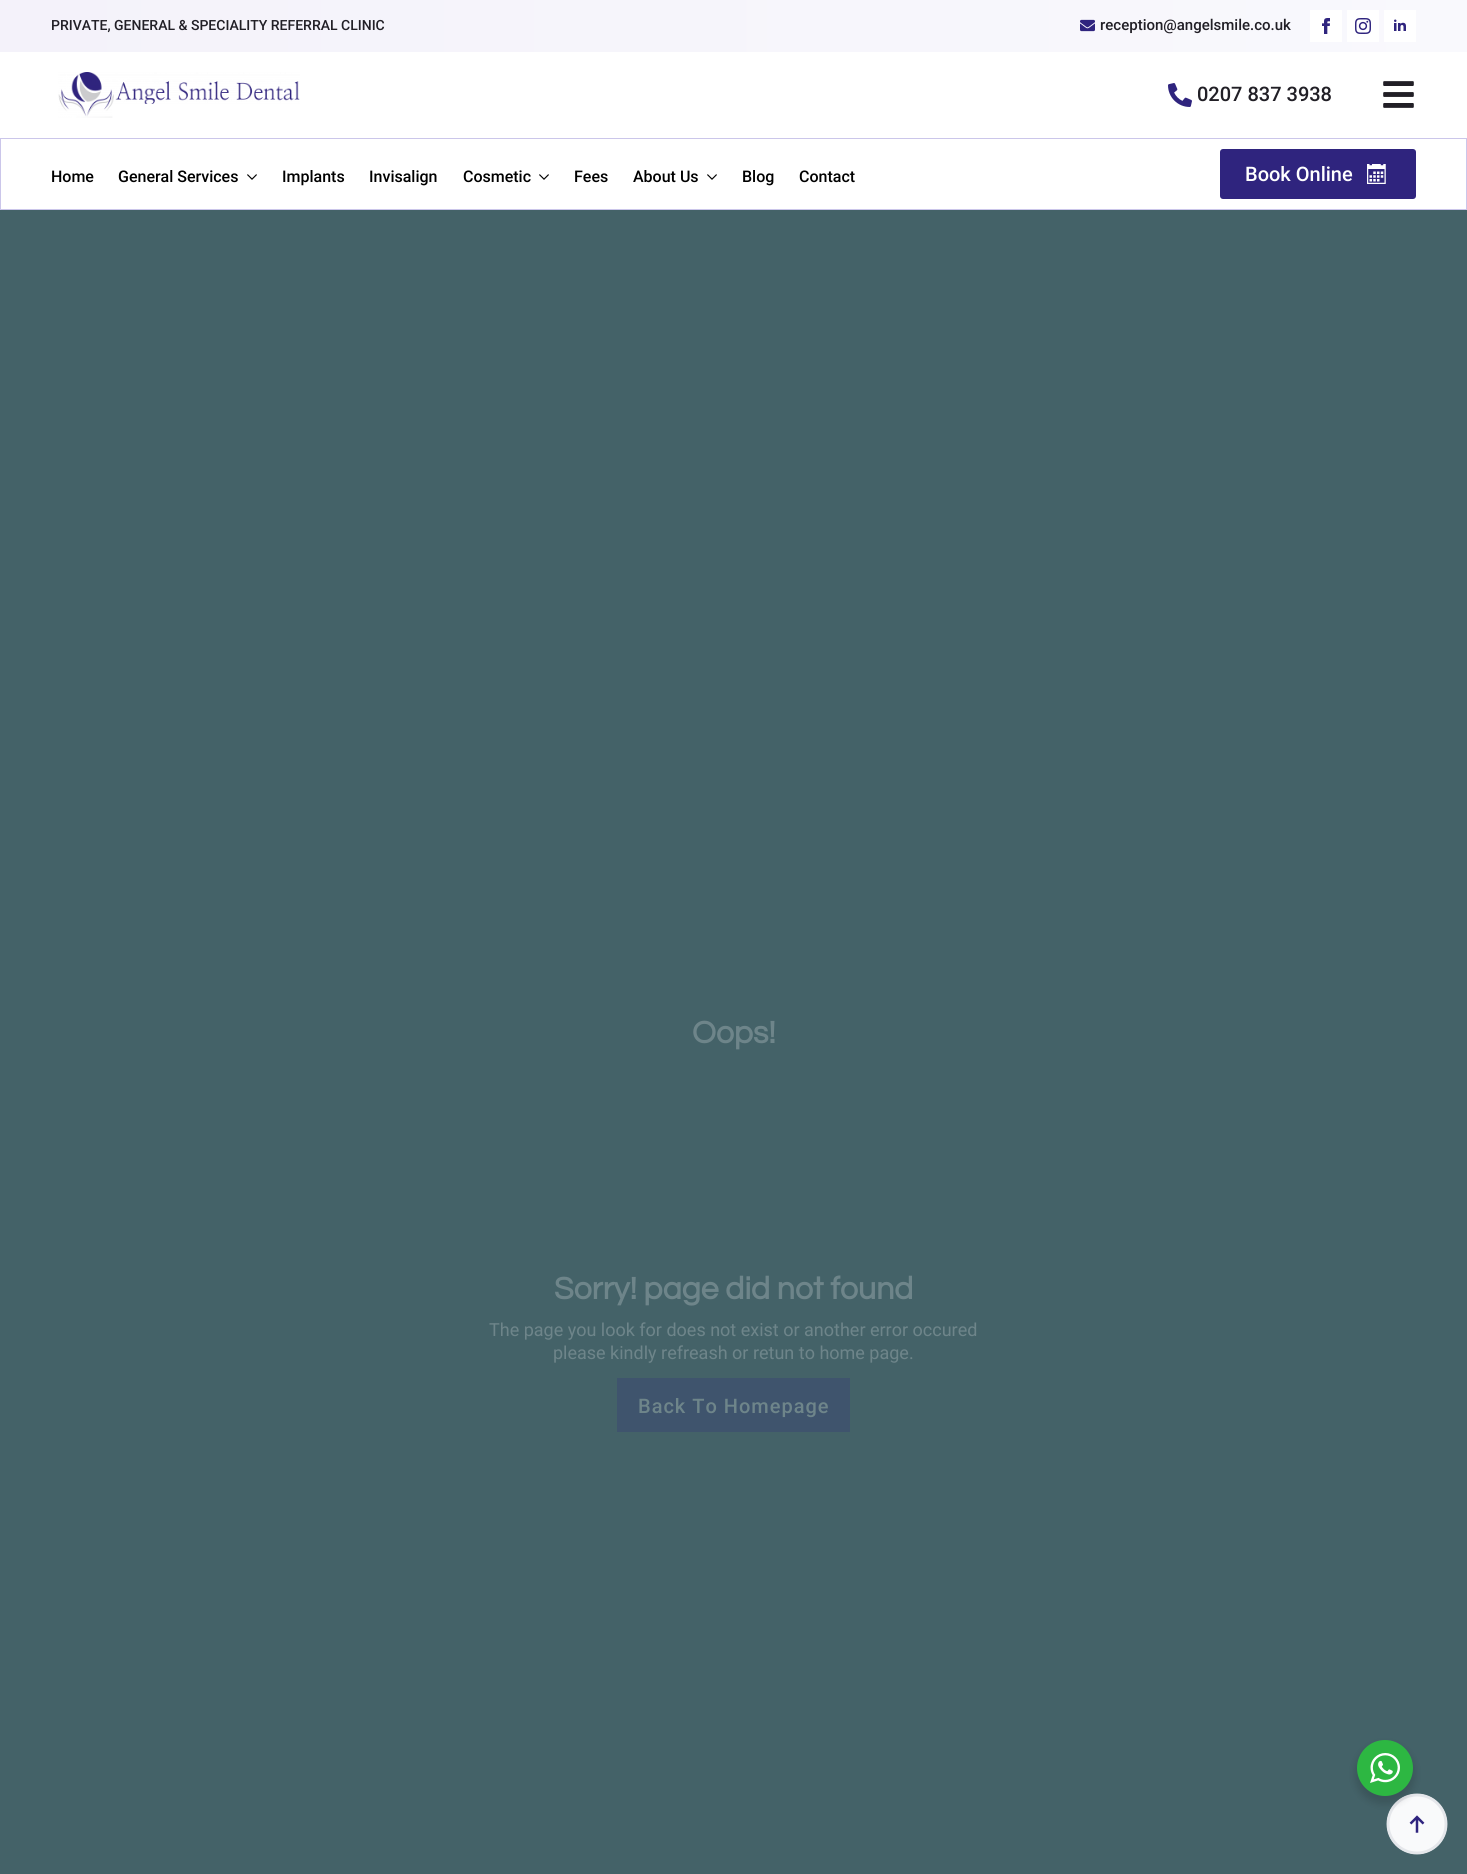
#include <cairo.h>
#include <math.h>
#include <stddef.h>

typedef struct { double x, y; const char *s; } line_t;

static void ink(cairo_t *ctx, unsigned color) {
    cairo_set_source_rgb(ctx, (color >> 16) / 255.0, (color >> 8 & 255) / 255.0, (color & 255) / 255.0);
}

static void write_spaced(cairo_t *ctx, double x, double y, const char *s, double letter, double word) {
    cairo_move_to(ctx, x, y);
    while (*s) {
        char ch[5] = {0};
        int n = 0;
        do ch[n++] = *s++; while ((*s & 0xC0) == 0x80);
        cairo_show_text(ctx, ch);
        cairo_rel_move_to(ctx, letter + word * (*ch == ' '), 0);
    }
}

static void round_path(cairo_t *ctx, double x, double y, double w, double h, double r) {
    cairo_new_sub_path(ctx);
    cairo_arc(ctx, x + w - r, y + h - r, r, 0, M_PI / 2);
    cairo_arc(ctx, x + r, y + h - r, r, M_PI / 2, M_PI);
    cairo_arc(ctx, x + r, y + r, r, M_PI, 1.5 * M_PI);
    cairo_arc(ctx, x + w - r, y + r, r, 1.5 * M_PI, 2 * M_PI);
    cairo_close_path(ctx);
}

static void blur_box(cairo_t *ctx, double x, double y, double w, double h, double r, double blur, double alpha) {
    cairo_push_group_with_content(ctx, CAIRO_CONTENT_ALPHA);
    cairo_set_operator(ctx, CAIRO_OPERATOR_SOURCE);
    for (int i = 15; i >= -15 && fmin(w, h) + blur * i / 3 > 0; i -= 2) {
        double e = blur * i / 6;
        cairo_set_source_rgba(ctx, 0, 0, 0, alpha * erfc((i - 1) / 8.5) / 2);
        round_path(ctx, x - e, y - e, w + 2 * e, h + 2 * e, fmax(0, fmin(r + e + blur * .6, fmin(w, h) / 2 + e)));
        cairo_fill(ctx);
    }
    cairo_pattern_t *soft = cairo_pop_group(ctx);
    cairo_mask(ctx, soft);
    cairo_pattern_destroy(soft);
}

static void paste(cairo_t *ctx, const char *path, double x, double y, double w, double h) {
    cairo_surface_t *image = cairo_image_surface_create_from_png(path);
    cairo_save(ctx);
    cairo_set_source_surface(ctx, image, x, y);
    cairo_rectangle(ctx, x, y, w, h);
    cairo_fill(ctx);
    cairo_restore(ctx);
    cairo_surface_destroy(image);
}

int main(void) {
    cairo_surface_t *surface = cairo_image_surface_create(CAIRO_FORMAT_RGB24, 1467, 1874);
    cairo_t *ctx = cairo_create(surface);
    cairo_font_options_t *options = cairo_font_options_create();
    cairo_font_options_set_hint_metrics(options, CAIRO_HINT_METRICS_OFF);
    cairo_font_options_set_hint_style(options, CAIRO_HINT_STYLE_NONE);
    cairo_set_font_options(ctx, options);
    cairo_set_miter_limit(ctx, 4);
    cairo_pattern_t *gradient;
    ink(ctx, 0x446268);
    cairo_paint(ctx);
    gradient = cairo_pattern_create_linear(0, 26, 1467, 26);
    cairo_pattern_add_color_stop_rgba(gradient, 0, 0.957, 0.949, 0.98, 1);
    cairo_pattern_add_color_stop_rgba(gradient, 1, 0.976, 0.976, 0.992, 1);
    cairo_set_source(ctx, gradient);
    cairo_pattern_destroy(gradient);
    cairo_rectangle(ctx, 0, 0, 1467, 52);
    cairo_fill(ctx);
    cairo_select_font_face(ctx, "Roboto Medium", CAIRO_FONT_SLANT_NORMAL, CAIRO_FONT_WEIGHT_NORMAL);
    cairo_set_font_size(ctx, 14);
    ink(ctx, 0x211F26);
    cairo_move_to(ctx, 51, 30);
    cairo_show_text(ctx, "PRIVATE, GENERAL & SPECIALITY REFERRAL CLINIC");
    paste(ctx, "media/1.png", 1080, 19, 15, 13);
    cairo_set_font_size(ctx, 15);
    cairo_move_to(ctx, 1100, 30);
    cairo_show_text(ctx, "reception@angelsmile.co.uk");
    ink(ctx, 0xFFFFFF);
    cairo_rectangle(ctx, 1310, 10, 32, 32);
    cairo_fill(ctx);
    paste(ctx, "media/2.png", 1322, 18, 8, 16);
    cairo_rectangle(ctx, 1347, 10, 32, 32);
    cairo_fill(ctx);
    paste(ctx, "media/3.png", 1355, 18, 16, 16);
    cairo_rectangle(ctx, 1384, 10, 32, 32);
    cairo_fill(ctx);
    paste(ctx, "media/4.png", 1394, 19, 12, 12);
    cairo_rectangle(ctx, 0, 52, 1467, 86);
    cairo_fill(ctx);
    paste(ctx, "media/5.png", 58, 72, 242, 46);
    paste(ctx, "media/6.png", 1168, 83, 24, 24);
    cairo_set_font_size(ctx, 20);
    ink(ctx, 0x211F26);
    cairo_move_to(ctx, 1197, 101);
    cairo_show_text(ctx, "0207 837 3938");
    paste(ctx, "media/7.png", 1383, 81, 31, 27);
    cairo_rectangle(ctx, 0.5, 138.5, 1466, 71);
    ink(ctx, 0xCBC6EA);
    cairo_set_line_width(ctx, 1);
    cairo_stroke(ctx);
    ink(ctx, 0xFFFFFF);
    cairo_rectangle(ctx, 1, 139, 1465, 70);
    cairo_fill(ctx);
    cairo_set_font_size(ctx, 16);
    ink(ctx, 0x000000);
    cairo_move_to(ctx, 51, 182);
    cairo_show_text(ctx, "Home");
    cairo_move_to(ctx, 118, 182);
    cairo_show_text(ctx, "General Services");
    paste(ctx, "media/8.png", 247, 174, 10, 6);
    {
        static const line_t items[] = {
            {282, 182, "Implants"},
            {369, 182, "Invisalign"},
            {463, 182, "Cosmetic"},
        };
        for (size_t i = 0; i < sizeof items / sizeof *items; i++) {
            cairo_move_to(ctx, items[i].x, items[i].y);
            cairo_show_text(ctx, items[i].s);
        }
    }
    paste(ctx, "media/8.png", 539, 174, 10, 6);
    cairo_move_to(ctx, 574, 182);
    cairo_show_text(ctx, "Fees");
    cairo_move_to(ctx, 633, 182);
    cairo_show_text(ctx, "About Us");
    paste(ctx, "media/8.png", 707, 174, 10, 6);
    cairo_move_to(ctx, 742, 182);
    cairo_show_text(ctx, "Blog");
    cairo_move_to(ctx, 799, 182);
    cairo_show_text(ctx, "Contact");
    ink(ctx, 0x2F247E);
    round_path(ctx, 1220, 149, 196, 50, 3);
    cairo_fill(ctx);
    cairo_set_font_size(ctx, 20);
    ink(ctx, 0xFFFFFF);
    cairo_move_to(ctx, 1245, 181);
    cairo_show_text(ctx, "Book Online");
    paste(ctx, "media/9.png", 1367, 164, 19, 20);
    cairo_select_font_face(ctx, "Questrial", CAIRO_FONT_SLANT_NORMAL, CAIRO_FONT_WEIGHT_BOLD);
    cairo_set_font_size(ctx, 32);
    ink(ctx, 0x6E858A);
    cairo_move_to(ctx, 692, 1043);
    cairo_show_text(ctx, "Oops!");
    cairo_move_to(ctx, 554, 1299);
    cairo_show_text(ctx, "Sorry! page did not found");
    cairo_select_font_face(ctx, "Roboto", CAIRO_FONT_SLANT_NORMAL, CAIRO_FONT_WEIGHT_NORMAL);
    cairo_set_font_size(ctx, 18);
    cairo_move_to(ctx, 489, 1336);
    cairo_show_text(ctx, "The page you look for does not exist or another error occured");
    cairo_move_to(ctx, 553, 1359);
    cairo_show_text(ctx, "please kindly refreash or retun to home page.");
    ink(ctx, 0x3F546D);
    cairo_rectangle(ctx, 617, 1378, 233, 54);
    cairo_fill(ctx);
    cairo_select_font_face(ctx, "Roboto Medium", CAIRO_FONT_SLANT_NORMAL, CAIRO_FONT_WEIGHT_NORMAL);
    cairo_set_font_size(ctx, 20);
    ink(ctx, 0x6E858A);
    write_spaced(ctx, 638, 1413, "Back To Homepage", 1, 0);
    ink(ctx, 0xF9FAFB);
    cairo_new_path(ctx);
    cairo_arc(ctx, 1417, 1824, 30, 0, 2 * M_PI);
    cairo_fill(ctx);
    paste(ctx, "media/11.png", 1409, 1815, 16, 18);
    cairo_new_path(ctx);
    cairo_move_to(ctx, 1417, 1795);
    cairo_curve_to(ctx, 1433, 1795, 1446, 1808, 1446, 1824);
    cairo_curve_to(ctx, 1446, 1840, 1433, 1853, 1417, 1853);
    cairo_curve_to(ctx, 1401, 1853, 1388, 1840, 1388, 1824);
    cairo_curve_to(ctx, 1388, 1808, 1401, 1795, 1417, 1795);
    ink(ctx, 0xE5E7EB);
    cairo_set_line_width(ctx, 2.9);
    cairo_set_line_cap(ctx, CAIRO_LINE_CAP_ROUND);
    cairo_stroke(ctx);
    ink(ctx, 0x000000);
    blur_box(ctx, 1355, 1744, 60, 60, 30, 4, 0.14);
    ink(ctx, 0x2DB742);
    cairo_arc(ctx, 1385, 1768, 28, 0, 2 * M_PI);
    cairo_fill(ctx);
    paste(ctx, "media/10.png", 1370, 1753, 30, 30);
    cairo_surface_write_to_png(surface, "image.png");
    cairo_font_options_destroy(options);
    cairo_destroy(ctx);
    cairo_surface_destroy(surface);
    return 0;
}
